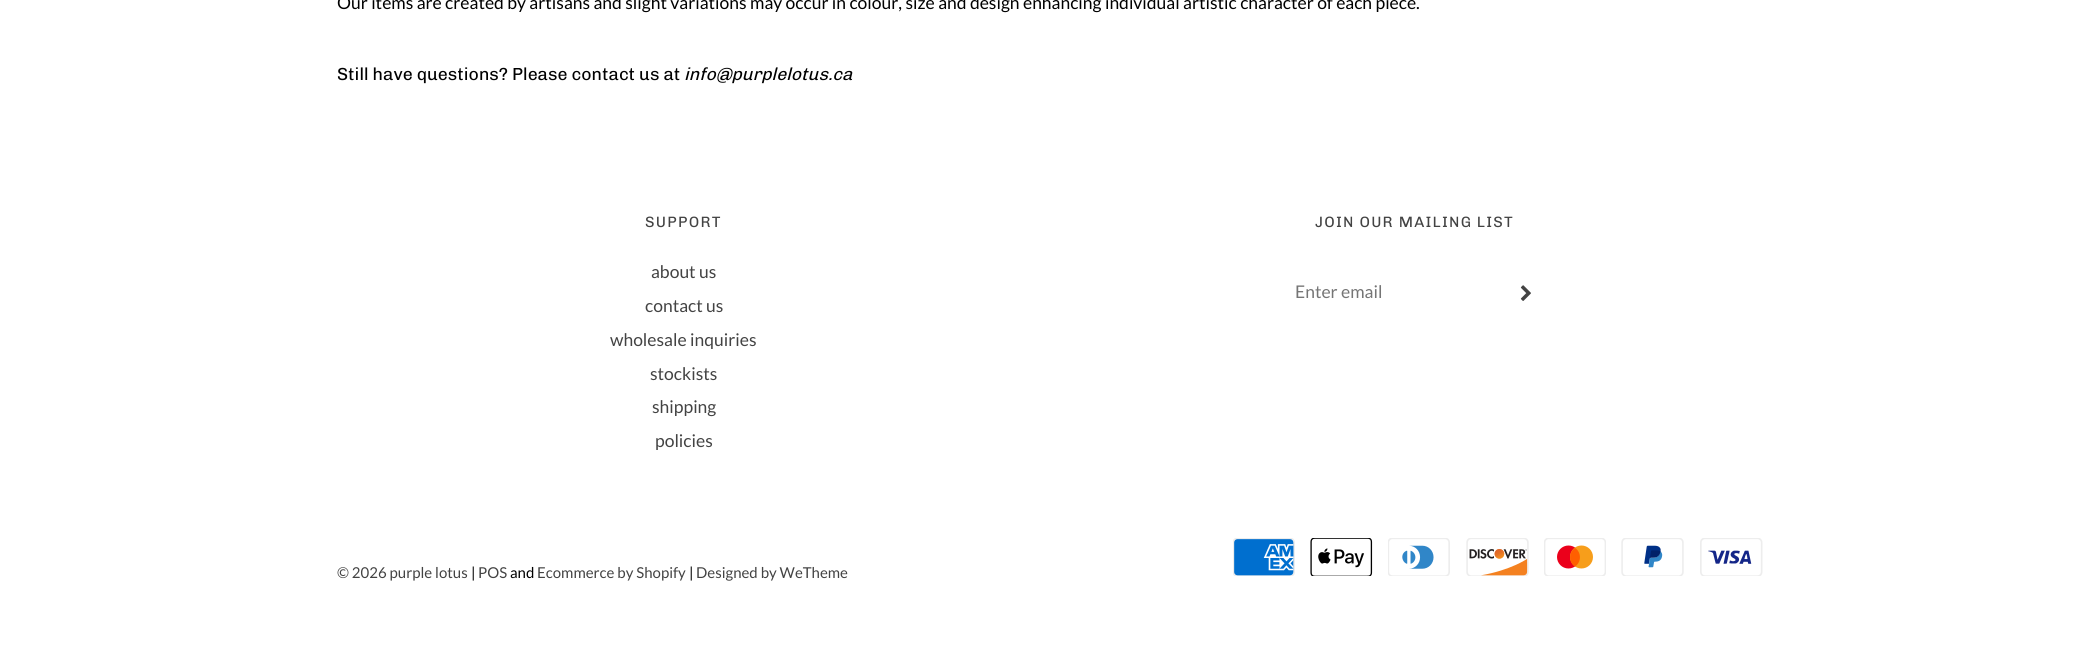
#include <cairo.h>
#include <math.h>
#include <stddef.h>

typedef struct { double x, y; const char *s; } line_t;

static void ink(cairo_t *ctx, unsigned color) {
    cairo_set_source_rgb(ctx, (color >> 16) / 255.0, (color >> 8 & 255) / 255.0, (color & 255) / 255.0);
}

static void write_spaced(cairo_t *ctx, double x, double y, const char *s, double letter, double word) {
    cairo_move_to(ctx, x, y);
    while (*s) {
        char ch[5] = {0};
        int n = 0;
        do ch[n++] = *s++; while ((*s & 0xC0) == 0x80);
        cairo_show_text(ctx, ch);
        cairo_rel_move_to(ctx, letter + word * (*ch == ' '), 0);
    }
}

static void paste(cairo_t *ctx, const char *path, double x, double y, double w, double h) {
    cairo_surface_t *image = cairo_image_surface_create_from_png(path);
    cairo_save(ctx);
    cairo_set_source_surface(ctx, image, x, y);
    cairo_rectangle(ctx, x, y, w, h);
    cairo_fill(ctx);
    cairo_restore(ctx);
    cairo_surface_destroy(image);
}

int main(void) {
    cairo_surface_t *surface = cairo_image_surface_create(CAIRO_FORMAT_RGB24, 2099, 646);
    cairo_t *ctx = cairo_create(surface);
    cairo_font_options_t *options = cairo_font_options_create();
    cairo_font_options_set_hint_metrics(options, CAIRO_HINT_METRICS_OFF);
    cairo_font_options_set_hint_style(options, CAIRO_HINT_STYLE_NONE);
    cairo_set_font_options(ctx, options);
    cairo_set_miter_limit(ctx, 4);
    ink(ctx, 0xFFFFFF);
    cairo_paint(ctx);
    cairo_select_font_face(ctx, "Lato", CAIRO_FONT_SLANT_NORMAL, CAIRO_FONT_WEIGHT_NORMAL);
    cairo_set_font_size(ctx, 17.5);
    ink(ctx, 0x000000);
    cairo_move_to(ctx, 337, 9);
    cairo_show_text(ctx, "Our items are created by artisans and slight variations may occur in colour, size and design enhancing individual artistic character of each piece.");
    cairo_select_font_face(ctx, "Chivo Medium", CAIRO_FONT_SLANT_NORMAL, CAIRO_FONT_WEIGHT_NORMAL);
    cairo_move_to(ctx, 337, 80);
    cairo_show_text(ctx, "Still have questions? Please contact us at");
    cairo_select_font_face(ctx, "Chivo Medium", CAIRO_FONT_SLANT_ITALIC, CAIRO_FONT_WEIGHT_NORMAL);
    cairo_move_to(ctx, 684, 80);
    cairo_show_text(ctx, "info@purplelotus.ca");
    cairo_select_font_face(ctx, "Chivo Medium", CAIRO_FONT_SLANT_NORMAL, CAIRO_FONT_WEIGHT_NORMAL);
    cairo_set_font_size(ctx, 15);
    ink(ctx, 0x434343);
    write_spaced(ctx, 645, 227, "SUPPORT", 1.25, 0);
    cairo_select_font_face(ctx, "Lato", CAIRO_FONT_SLANT_NORMAL, CAIRO_FONT_WEIGHT_NORMAL);
    cairo_set_font_size(ctx, 17.5);
    {
        static const line_t items[] = {
            {651, 278, "about us"},
            {645, 312, "contact us"},
            {610, 346, "wholesale inquiries"},
            {650, 380, "stockists"},
            {652, 413, "shipping"},
            {655, 447, "policies"},
        };
        for (size_t i = 0; i < sizeof items / sizeof *items; i++) {
            cairo_move_to(ctx, items[i].x, items[i].y);
            cairo_show_text(ctx, items[i].s);
        }
    }
    cairo_select_font_face(ctx, "Chivo Medium", CAIRO_FONT_SLANT_NORMAL, CAIRO_FONT_WEIGHT_NORMAL);
    cairo_set_font_size(ctx, 15);
    write_spaced(ctx, 1315, 227, "JOIN OUR MAILING LIST", 1.25, 0);
    cairo_select_font_face(ctx, "Lato", CAIRO_FONT_SLANT_NORMAL, CAIRO_FONT_WEIGHT_NORMAL);
    cairo_set_font_size(ctx, 17.5);
    ink(ctx, 0x757575);
    cairo_move_to(ctx, 1295, 298);
    cairo_show_text(ctx, "Enter email");
    paste(ctx, "media/1.png", 1520, 285, 11, 16);
    cairo_set_font_size(ctx, 15);
    ink(ctx, 0x434343);
    cairo_move_to(ctx, 337, 578);
    cairo_show_text(ctx, "© 2026 purple lotus");
    ink(ctx, 0x000000);
    cairo_move_to(ctx, 471, 578);
    cairo_show_text(ctx, "|");
    ink(ctx, 0x434343);
    cairo_move_to(ctx, 478, 578);
    cairo_show_text(ctx, "POS");
    ink(ctx, 0x000000);
    cairo_move_to(ctx, 510, 578);
    cairo_show_text(ctx, "and");
    ink(ctx, 0x434343);
    cairo_move_to(ctx, 537, 578);
    cairo_show_text(ctx, "Ecommerce by Shopify");
    ink(ctx, 0x000000);
    cairo_move_to(ctx, 689, 578);
    cairo_show_text(ctx, "|");
    ink(ctx, 0x434343);
    cairo_move_to(ctx, 696, 578);
    cairo_show_text(ctx, "Designed by WeTheme");
    paste(ctx, "media/2.png", 1233, 538, 62, 38);
    paste(ctx, "media/3.png", 1310, 538, 63, 38);
    paste(ctx, "media/4.png", 1388, 538, 62, 38);
    paste(ctx, "media/5.png", 1466, 538, 63, 38);
    paste(ctx, "media/6.png", 1544, 538, 62, 38);
    paste(ctx, "media/7.png", 1621, 538, 63, 38);
    paste(ctx, "media/8.png", 1700, 538, 63, 38);
    cairo_surface_write_to_png(surface, "image.png");
    cairo_font_options_destroy(options);
    cairo_destroy(ctx);
    cairo_surface_destroy(surface);
    return 0;
}
